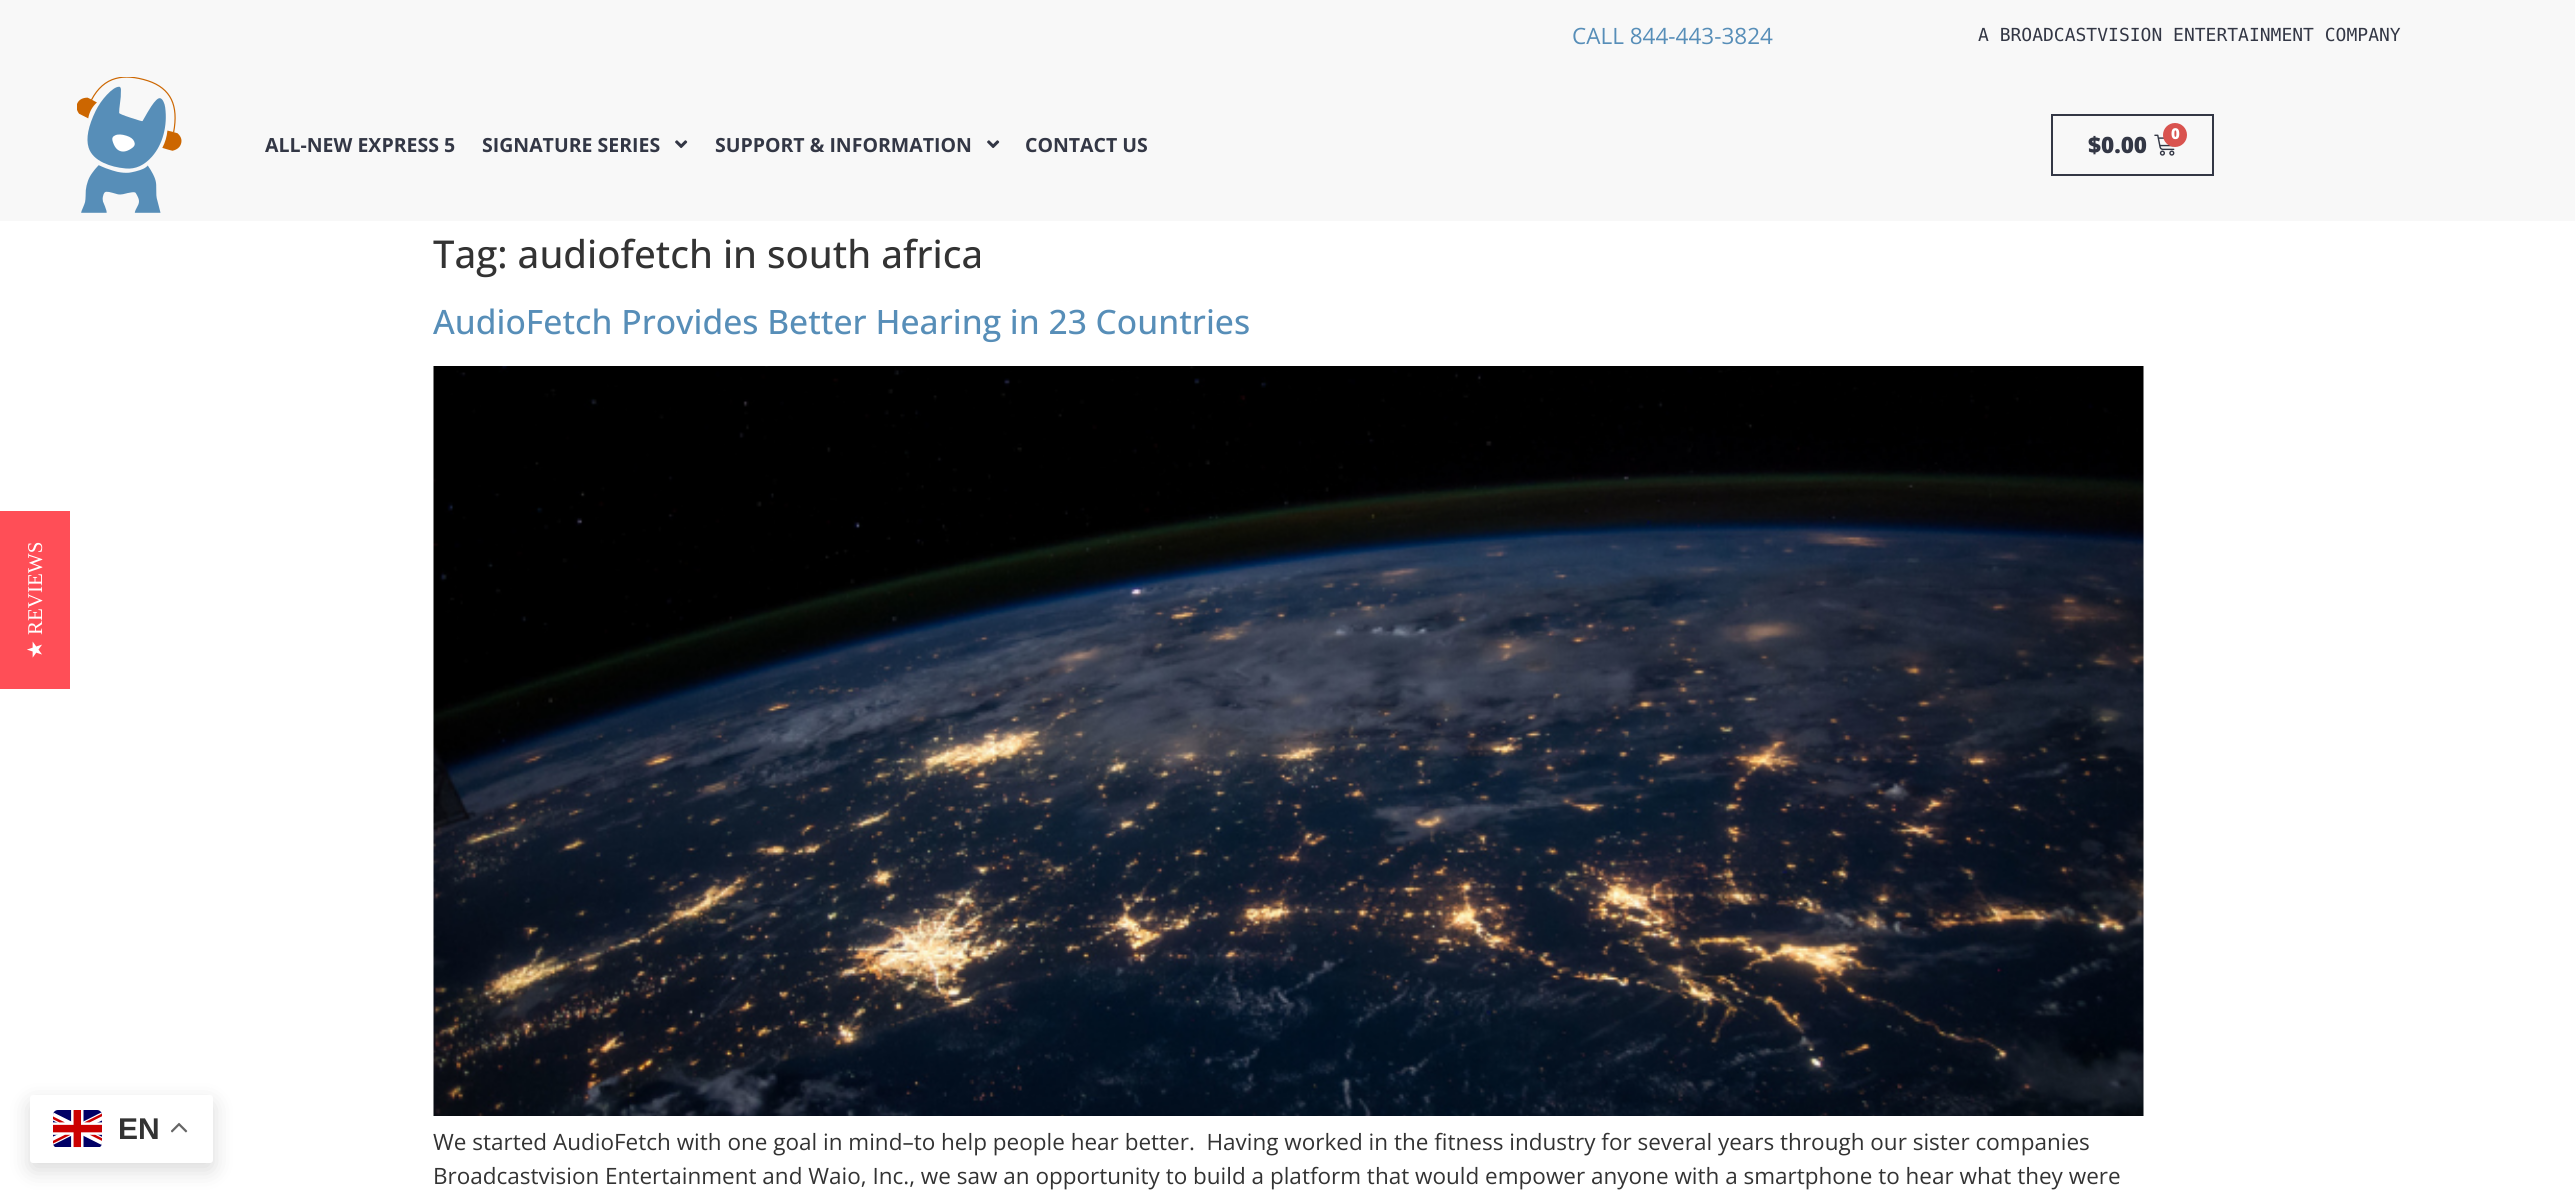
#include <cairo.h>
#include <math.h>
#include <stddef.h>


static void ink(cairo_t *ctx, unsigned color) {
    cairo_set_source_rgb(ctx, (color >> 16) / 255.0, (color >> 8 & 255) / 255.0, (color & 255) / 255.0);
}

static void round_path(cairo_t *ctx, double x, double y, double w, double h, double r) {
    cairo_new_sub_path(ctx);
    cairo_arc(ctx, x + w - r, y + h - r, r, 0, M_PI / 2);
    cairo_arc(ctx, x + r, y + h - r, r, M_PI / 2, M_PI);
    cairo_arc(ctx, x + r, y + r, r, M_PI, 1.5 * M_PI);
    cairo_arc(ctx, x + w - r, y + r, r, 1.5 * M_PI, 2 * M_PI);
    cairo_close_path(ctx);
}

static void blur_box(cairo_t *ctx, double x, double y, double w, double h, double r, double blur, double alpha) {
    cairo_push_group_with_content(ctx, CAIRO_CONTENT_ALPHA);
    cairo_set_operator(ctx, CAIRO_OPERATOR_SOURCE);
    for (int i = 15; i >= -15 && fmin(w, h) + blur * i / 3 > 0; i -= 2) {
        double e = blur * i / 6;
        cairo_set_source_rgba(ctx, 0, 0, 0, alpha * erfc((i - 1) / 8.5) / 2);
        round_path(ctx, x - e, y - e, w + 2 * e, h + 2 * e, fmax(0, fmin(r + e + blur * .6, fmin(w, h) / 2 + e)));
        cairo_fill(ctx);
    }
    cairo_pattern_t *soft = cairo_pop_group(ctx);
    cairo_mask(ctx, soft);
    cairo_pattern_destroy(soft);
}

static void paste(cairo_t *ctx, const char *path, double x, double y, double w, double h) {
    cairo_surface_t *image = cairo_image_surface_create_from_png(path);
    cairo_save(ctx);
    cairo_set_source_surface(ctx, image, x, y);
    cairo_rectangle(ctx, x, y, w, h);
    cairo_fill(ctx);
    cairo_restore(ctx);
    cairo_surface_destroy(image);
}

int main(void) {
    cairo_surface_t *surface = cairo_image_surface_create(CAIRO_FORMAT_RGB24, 2575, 1199);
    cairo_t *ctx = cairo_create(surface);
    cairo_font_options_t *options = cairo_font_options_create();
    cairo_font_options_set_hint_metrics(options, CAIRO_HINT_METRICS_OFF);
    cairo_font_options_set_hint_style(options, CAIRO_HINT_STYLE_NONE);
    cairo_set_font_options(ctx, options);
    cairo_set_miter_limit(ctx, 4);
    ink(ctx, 0xFFFFFF);
    cairo_paint(ctx);
    ink(ctx, 0xF8F8F8);
    cairo_rectangle(ctx, 0, 0, 2575, 221);
    cairo_fill(ctx);
    cairo_select_font_face(ctx, "Open Sans", CAIRO_FONT_SLANT_NORMAL, CAIRO_FONT_WEIGHT_NORMAL);
    cairo_set_font_size(ctx, 22.5);
    ink(ctx, 0x578EB8);
    cairo_move_to(ctx, 1572, 44);
    cairo_show_text(ctx, "CALL 844-443-3824");
    cairo_select_font_face(ctx, "DejaVu Sans Mono", CAIRO_FONT_SLANT_NORMAL, CAIRO_FONT_WEIGHT_NORMAL);
    cairo_set_font_size(ctx, 18);
    ink(ctx, 0x333745);
    cairo_move_to(ctx, 1978, 41);
    cairo_show_text(ctx, "A BROADCASTVISION ENTERTAINMENT COMPANY");
    paste(ctx, "media/1.png", 77, 77, 105, 136);
    cairo_select_font_face(ctx, "Open Sans", CAIRO_FONT_SLANT_NORMAL, CAIRO_FONT_WEIGHT_BOLD);
    cairo_set_font_size(ctx, 19.5);
    cairo_move_to(ctx, 265, 152);
    cairo_show_text(ctx, "ALL-NEW EXPRESS 5");
    cairo_move_to(ctx, 482, 152);
    cairo_show_text(ctx, "SIGNATURE SERIES");
    paste(ctx, "media/2.png", 675, 140, 13, 9);
    cairo_move_to(ctx, 715, 152);
    cairo_show_text(ctx, "SUPPORT & INFORMATION");
    paste(ctx, "media/2.png", 987, 140, 13, 9);
    cairo_move_to(ctx, 1025, 152);
    cairo_show_text(ctx, "CONTACT US");
    cairo_rectangle(ctx, 2052, 115, 161, 60);
    cairo_stroke(ctx);
    cairo_select_font_face(ctx, "Open Sans ExtraBold", CAIRO_FONT_SLANT_NORMAL, CAIRO_FONT_WEIGHT_NORMAL);
    cairo_set_font_size(ctx, 22.5);
    cairo_move_to(ctx, 2088, 153);
    cairo_show_text(ctx, "$0.00");
    paste(ctx, "media/3.png", 2154, 134, 21, 22);
    ink(ctx, 0xD9534F);
    cairo_arc(ctx, 2175, 135, 12, 0, 2 * M_PI);
    cairo_fill(ctx);
    cairo_set_font_size(ctx, 15);
    ink(ctx, 0xFFFFFF);
    cairo_move_to(ctx, 2171, 139);
    cairo_show_text(ctx, "0");
    ink(ctx, 0xFF4E57);
    cairo_rectangle(ctx, 0, 511, 70, 178);
    cairo_fill(ctx);
    cairo_select_font_face(ctx, "Liberation Serif", CAIRO_FONT_SLANT_NORMAL, CAIRO_FONT_WEIGHT_NORMAL);
    cairo_set_font_size(ctx, 21);
    ink(ctx, 0xFFFFFF);
    cairo_save(ctx);
    cairo_translate(ctx, 42, 635);
    cairo_rotate(ctx, -90 * M_PI / 180);
    cairo_move_to(ctx, 0, 0);
    cairo_show_text(ctx, "REVIEWS");
    cairo_restore(ctx);
    cairo_select_font_face(ctx, "DejaVu Sans", CAIRO_FONT_SLANT_NORMAL, CAIRO_FONT_WEIGHT_NORMAL);
    cairo_save(ctx);
    cairo_translate(ctx, 42, 659);
    cairo_rotate(ctx, -90 * M_PI / 180);
    cairo_move_to(ctx, 0, 0);
    cairo_show_text(ctx, "★");
    cairo_restore(ctx);
    cairo_select_font_face(ctx, "Open Sans Medium", CAIRO_FONT_SLANT_NORMAL, CAIRO_FONT_WEIGHT_NORMAL);
    cairo_set_font_size(ctx, 38.4);
    ink(ctx, 0x333333);
    cairo_move_to(ctx, 433, 268);
    cairo_show_text(ctx, "Tag: audiofetch in south africa");
    cairo_set_font_size(ctx, 33.6);
    ink(ctx, 0x578EB8);
    cairo_move_to(ctx, 433, 334);
    cairo_show_text(ctx, "AudioFetch Provides Better Hearing in 23 Countries");
    paste(ctx, "media/4.png", 433, 366, 1711, 750);
    cairo_select_font_face(ctx, "Open Sans", CAIRO_FONT_SLANT_NORMAL, CAIRO_FONT_WEIGHT_NORMAL);
    cairo_set_font_size(ctx, 22.5);
    ink(ctx, 0x333333);
    cairo_move_to(ctx, 433, 1150);
    cairo_show_text(ctx, "We started AudioFetch with one goal in mind–to help people hear better.  Having worked in the fitness industry for several years through our sister companies");
    cairo_move_to(ctx, 433, 1184);
    cairo_show_text(ctx, "Broadcastvision Entertainment and Waio, Inc., we saw an opportunity to build a platform that would empower anyone with a smartphone to hear what they were");
    ink(ctx, 0x000000);
    blur_box(ctx, 30, 1103, 183, 67, 3, 11, 0.15);
    ink(ctx, 0xFFFFFF);
    round_path(ctx, 30, 1095, 183, 68, 3);
    cairo_fill(ctx);
    paste(ctx, "media/5.png", 53, 1110, 49, 38);
    cairo_select_font_face(ctx, "Liberation Sans", CAIRO_FONT_SLANT_NORMAL, CAIRO_FONT_WEIGHT_BOLD);
    cairo_set_font_size(ctx, 30);
    ink(ctx, 0x333333);
    cairo_move_to(ctx, 118, 1139);
    cairo_show_text(ctx, "EN");
    paste(ctx, "media/6.png", 171, 1122, 17, 11);
    cairo_surface_write_to_png(surface, "image.png");
    cairo_font_options_destroy(options);
    cairo_destroy(ctx);
    cairo_surface_destroy(surface);
    return 0;
}
